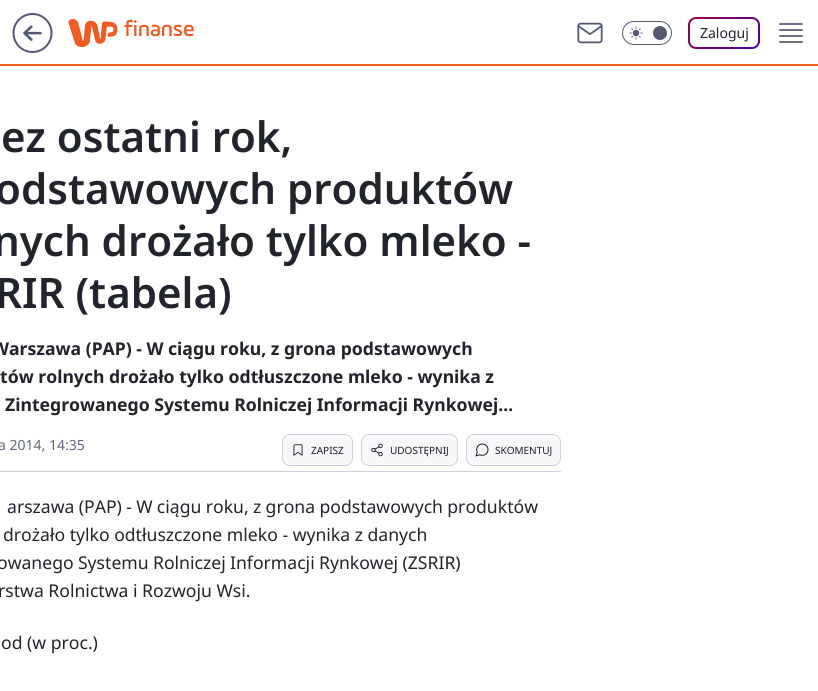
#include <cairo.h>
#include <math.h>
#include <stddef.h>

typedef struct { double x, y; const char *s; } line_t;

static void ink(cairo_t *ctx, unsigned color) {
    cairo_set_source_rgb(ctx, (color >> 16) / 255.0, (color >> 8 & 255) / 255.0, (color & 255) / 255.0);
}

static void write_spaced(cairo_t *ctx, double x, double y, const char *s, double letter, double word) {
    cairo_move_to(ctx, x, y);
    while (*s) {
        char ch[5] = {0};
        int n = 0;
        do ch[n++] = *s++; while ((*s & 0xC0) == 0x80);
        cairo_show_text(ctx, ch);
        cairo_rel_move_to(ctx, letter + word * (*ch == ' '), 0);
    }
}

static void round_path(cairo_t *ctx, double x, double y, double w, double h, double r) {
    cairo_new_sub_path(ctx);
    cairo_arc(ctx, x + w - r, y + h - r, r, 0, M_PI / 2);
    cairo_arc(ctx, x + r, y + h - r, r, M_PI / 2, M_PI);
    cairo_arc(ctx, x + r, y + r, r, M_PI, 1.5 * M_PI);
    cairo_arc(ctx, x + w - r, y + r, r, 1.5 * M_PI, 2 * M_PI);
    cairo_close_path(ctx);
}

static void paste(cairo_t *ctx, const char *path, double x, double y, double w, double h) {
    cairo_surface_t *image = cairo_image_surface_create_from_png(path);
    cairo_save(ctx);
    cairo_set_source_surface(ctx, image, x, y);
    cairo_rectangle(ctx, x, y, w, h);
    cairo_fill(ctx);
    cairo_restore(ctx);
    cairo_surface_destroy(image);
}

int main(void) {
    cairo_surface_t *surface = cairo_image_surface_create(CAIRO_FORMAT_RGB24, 818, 691);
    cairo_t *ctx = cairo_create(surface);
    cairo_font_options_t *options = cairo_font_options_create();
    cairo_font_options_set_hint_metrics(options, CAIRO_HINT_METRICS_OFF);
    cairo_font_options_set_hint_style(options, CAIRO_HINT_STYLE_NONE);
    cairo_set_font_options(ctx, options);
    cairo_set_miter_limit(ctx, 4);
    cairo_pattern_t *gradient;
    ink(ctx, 0xFFFFFF);
    cairo_paint(ctx);
    paste(ctx, "media/1.png", 12, 13, 41, 40);
    paste(ctx, "media/2.png", 68, 19, 126, 28);
    paste(ctx, "media/3.png", 577, 22, 26, 22);
    round_path(ctx, 622.5, 21.5, 49, 23, 11.5);
    ink(ctx, 0x555A72);
    cairo_set_line_width(ctx, 1);
    cairo_stroke(ctx);
    paste(ctx, "media/4.png", 629, 26, 14, 14);
    cairo_arc(ctx, 660, 33, 7, 0, 2 * M_PI);
    cairo_fill(ctx);
    gradient = cairo_pattern_create_linear(698, 7, 750, 59);
    cairo_pattern_add_color_stop_rgba(gradient, 0, 0.608, 0.008, 0.22, 1);
    cairo_pattern_add_color_stop_rgba(gradient, 1, 0.267, 0.016, 0.682, 1);
    cairo_set_source(ctx, gradient);
    cairo_pattern_destroy(gradient);
    round_path(ctx, 688, 17, 72, 32, 8);
    cairo_fill(ctx);
    ink(ctx, 0xFFFFFF);
    round_path(ctx, 690, 19, 68, 28, 6);
    cairo_fill(ctx);
    cairo_select_font_face(ctx, "Noto Sans", CAIRO_FONT_SLANT_NORMAL, CAIRO_FONT_WEIGHT_NORMAL);
    cairo_set_font_size(ctx, 14);
    ink(ctx, 0x22242D);
    cairo_move_to(ctx, 700, 38);
    cairo_show_text(ctx, "Zaloguj");
    cairo_new_path(ctx);
    cairo_move_to(ctx, 780, 36);
    cairo_line_to(ctx, 802, 36);
    cairo_move_to(ctx, 780, 30);
    cairo_line_to(ctx, 802, 30);
    cairo_move_to(ctx, 780, 24);
    cairo_line_to(ctx, 802, 24);
    cairo_move_to(ctx, 780, 42);
    cairo_line_to(ctx, 802, 42);
    ink(ctx, 0x555A72);
    cairo_set_line_width(ctx, 1.8);
    cairo_set_line_cap(ctx, CAIRO_LINE_CAP_ROUND);
    cairo_set_line_join(ctx, CAIRO_LINE_JOIN_ROUND);
    cairo_stroke(ctx);
    ink(ctx, 0xF15A23);
    cairo_rectangle(ctx, 0, 64, 818, 2);
    cairo_fill(ctx);
    cairo_select_font_face(ctx, "Noto Sans SemiBold", CAIRO_FONT_SLANT_NORMAL, CAIRO_FONT_WEIGHT_NORMAL);
    cairo_set_font_size(ctx, 42);
    ink(ctx, 0x22242D);
    {
        static const line_t items[] = {
            {1, 152, "ez ostatni rok,"},
            {-5, 204, "odstawowych produktów"},
            {-7, 256, "nych drożało tylko mleko -"},
            {-5, 308, "RIR (tabela)"},
        };
        for (size_t i = 0; i < sizeof items / sizeof *items; i++) {
            cairo_move_to(ctx, items[i].x, items[i].y);
            cairo_show_text(ctx, items[i].s);
        }
    }
    cairo_select_font_face(ctx, "Noto Sans", CAIRO_FONT_SLANT_NORMAL, CAIRO_FONT_WEIGHT_BOLD);
    cairo_set_font_size(ctx, 17.6);
    {
        static const line_t items[] = {
            {-8, 355, "Warszawa (PAP) - W ciągu roku, z grona podstawowych"},
            {0, 383, "tów rolnych drożało tylko odtłuszczone mleko - wynika z"},
            {5, 411, "Zintegrowanego Systemu Rolniczej Informacji Rynkowej..."},
        };
        for (size_t i = 0; i < sizeof items / sizeof *items; i++) {
            cairo_move_to(ctx, items[i].x, items[i].y);
            cairo_show_text(ctx, items[i].s);
        }
    }
    ink(ctx, 0xCCD1DD);
    cairo_rectangle(ctx, 0, 471, 561, 1);
    cairo_fill(ctx);
    cairo_select_font_face(ctx, "Noto Sans", CAIRO_FONT_SLANT_NORMAL, CAIRO_FONT_WEIGHT_NORMAL);
    cairo_set_font_size(ctx, 14);
    ink(ctx, 0x636880);
    cairo_move_to(ctx, -2, 450);
    cairo_show_text(ctx, "a 2014, 14:35");
    ink(ctx, 0xF7F8FA);
    round_path(ctx, 282.5, 434.5, 70, 31, 7.5);
    cairo_fill_preserve(ctx);
    ink(ctx, 0xCCD1DD);
    cairo_set_line_width(ctx, 1);
    cairo_set_line_cap(ctx, CAIRO_LINE_CAP_BUTT);
    cairo_set_line_join(ctx, CAIRO_LINE_JOIN_MITER);
    cairo_stroke(ctx);
    paste(ctx, "media/5.png", 293, 444, 10, 12);
    cairo_set_font_size(ctx, 10);
    ink(ctx, 0x1B1C22);
    cairo_move_to(ctx, 311, 454);
    cairo_show_text(ctx, "ZAPISZ");
    ink(ctx, 0xF7F8FA);
    round_path(ctx, 361.5, 434.5, 96, 31, 7.5);
    cairo_fill_preserve(ctx);
    ink(ctx, 0xCCD1DD);
    cairo_stroke(ctx);
    paste(ctx, "media/6.png", 371, 443, 12, 14);
    ink(ctx, 0x1B1C22);
    cairo_move_to(ctx, 390, 454);
    cairo_show_text(ctx, "UDOSTĘPNIJ");
    ink(ctx, 0xF7F8FA);
    round_path(ctx, 466.5, 434.5, 94, 31, 7.5);
    cairo_fill_preserve(ctx);
    ink(ctx, 0xCCD1DD);
    cairo_stroke(ctx);
    paste(ctx, "media/7.png", 475, 443, 14, 14);
    ink(ctx, 0x1B1C22);
    cairo_move_to(ctx, 495, 454);
    cairo_show_text(ctx, "SKOMENTUJ");
    cairo_set_font_size(ctx, 17.6);
    ink(ctx, 0x22242D);
    write_spaced(ctx, 7, 513, "arszawa (PAP) - W ciągu roku, z grona podstawowych produktów", 0, -0.25);
    cairo_move_to(ctx, 3, 541);
    cairo_show_text(ctx, "drożało tylko odtłuszczone mleko - wynika z danych");
    write_spaced(ctx, -3, 569, "owanego Systemu Rolniczej Informacji Rynkowej (ZSRIR)", 0, -0.25);
    {
        static const line_t items[] = {
            {-2, 597, "rstwa Rolnictwa i Rozwoju Wsi."},
            {1, 649, "od"},
            {27, 649, "(w proc.)"},
        };
        for (size_t i = 0; i < sizeof items / sizeof *items; i++) {
            cairo_move_to(ctx, items[i].x, items[i].y);
            cairo_show_text(ctx, items[i].s);
        }
    }
    cairo_surface_write_to_png(surface, "image.png");
    cairo_font_options_destroy(options);
    cairo_destroy(ctx);
    cairo_surface_destroy(surface);
    return 0;
}
